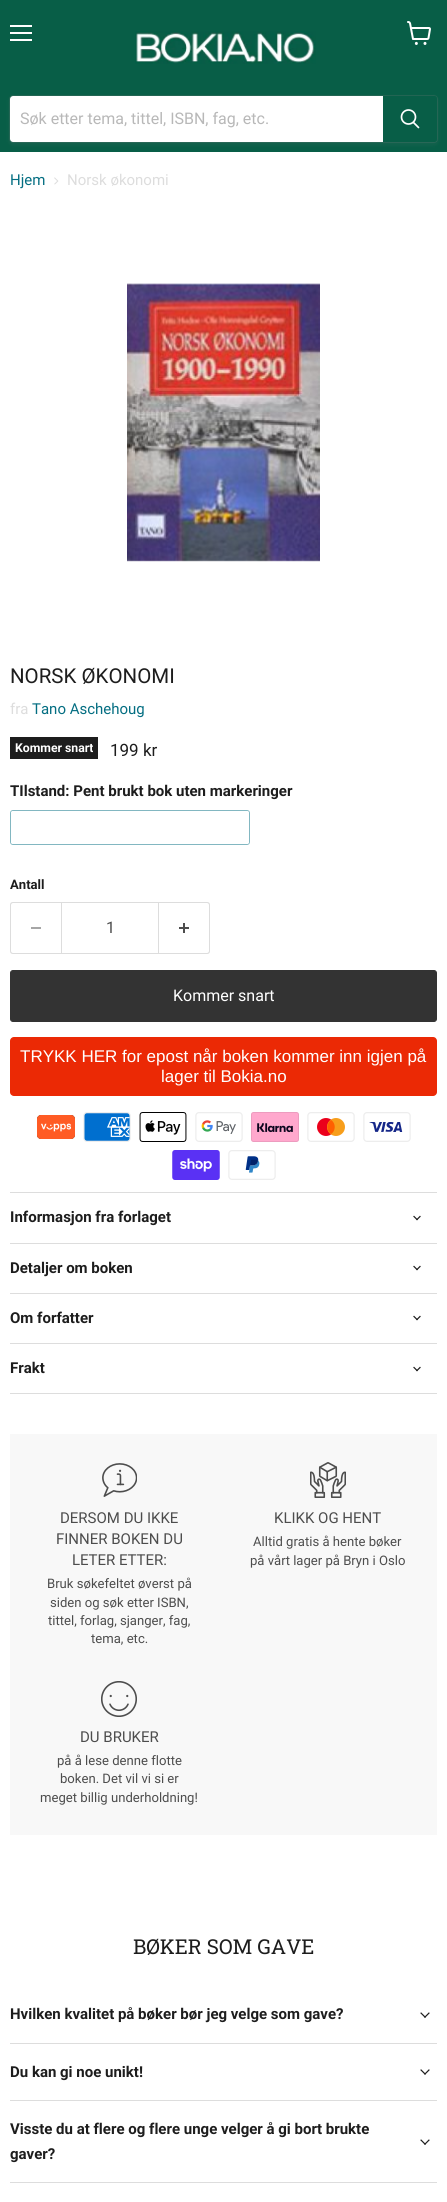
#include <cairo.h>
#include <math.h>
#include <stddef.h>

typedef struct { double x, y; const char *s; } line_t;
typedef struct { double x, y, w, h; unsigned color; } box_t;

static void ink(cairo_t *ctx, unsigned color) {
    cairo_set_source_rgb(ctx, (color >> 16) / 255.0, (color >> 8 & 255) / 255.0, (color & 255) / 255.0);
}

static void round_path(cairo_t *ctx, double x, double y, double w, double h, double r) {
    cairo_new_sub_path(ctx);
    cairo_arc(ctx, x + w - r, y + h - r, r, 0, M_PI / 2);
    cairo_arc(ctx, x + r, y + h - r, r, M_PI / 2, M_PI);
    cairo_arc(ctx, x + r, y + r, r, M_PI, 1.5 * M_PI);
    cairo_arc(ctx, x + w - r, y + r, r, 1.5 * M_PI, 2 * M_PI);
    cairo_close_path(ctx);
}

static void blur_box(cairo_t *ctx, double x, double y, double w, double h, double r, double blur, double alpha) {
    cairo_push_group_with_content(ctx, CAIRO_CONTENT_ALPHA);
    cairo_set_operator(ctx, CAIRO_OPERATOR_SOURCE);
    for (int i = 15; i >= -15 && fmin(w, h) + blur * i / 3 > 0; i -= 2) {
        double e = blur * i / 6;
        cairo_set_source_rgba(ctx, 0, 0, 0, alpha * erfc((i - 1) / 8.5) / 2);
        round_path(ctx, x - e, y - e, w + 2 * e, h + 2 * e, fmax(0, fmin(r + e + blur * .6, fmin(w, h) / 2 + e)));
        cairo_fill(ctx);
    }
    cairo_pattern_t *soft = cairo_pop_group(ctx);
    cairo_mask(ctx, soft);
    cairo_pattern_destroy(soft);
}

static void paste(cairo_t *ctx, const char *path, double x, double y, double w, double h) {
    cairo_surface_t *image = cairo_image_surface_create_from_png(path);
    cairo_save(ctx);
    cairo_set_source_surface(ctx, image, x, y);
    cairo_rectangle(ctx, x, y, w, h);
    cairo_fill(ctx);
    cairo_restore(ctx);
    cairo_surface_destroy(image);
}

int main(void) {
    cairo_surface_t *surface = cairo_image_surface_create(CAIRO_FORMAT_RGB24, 447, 2202);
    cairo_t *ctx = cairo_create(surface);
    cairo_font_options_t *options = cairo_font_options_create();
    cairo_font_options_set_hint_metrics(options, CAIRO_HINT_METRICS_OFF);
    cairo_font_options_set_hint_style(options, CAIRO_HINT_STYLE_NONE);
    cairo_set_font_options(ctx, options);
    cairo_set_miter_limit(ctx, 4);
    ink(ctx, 0xFFFFFF);
    cairo_paint(ctx);
    {
        static const box_t items[] = {
            {0, 0, 447, 152, 0x085E47},
            {10, 25, 22, 2, 0xFFFFFF},
            {10, 32, 22, 2, 0xFFFFFF},
            {10, 39, 22, 2, 0xFFFFFF},
        };
        for (size_t i = 0; i < sizeof items / sizeof *items; i++) {
            ink(ctx, items[i].color);
            cairo_rectangle(ctx, items[i].x, items[i].y, items[i].w, items[i].h);
            cairo_fill(ctx);
        }
    }
    paste(ctx, "media/1.png", 407, 21, 24, 24);
    paste(ctx, "media/2.png", 135, 31, 181, 33);
    ink(ctx, 0x808080);
    blur_box(ctx, 9, 97, 429, 48, 4, 1.5, 0.11);
    round_path(ctx, 9.5, 95.5, 428, 47, 3.5);
    cairo_set_source_rgba(ctx, 0.502, 0.502, 0.502, 0.2);
    cairo_set_line_width(ctx, 1);
    cairo_stroke(ctx);
    ink(ctx, 0xFFFFFF);
    cairo_new_path(ctx);
    cairo_move_to(ctx, 13, 96);
    cairo_line_to(ctx, 383, 96);
    cairo_line_to(ctx, 383, 142);
    cairo_line_to(ctx, 13, 142);
    cairo_curve_to(ctx, 11.5, 142, 10, 140.5, 10, 139);
    cairo_line_to(ctx, 10, 99);
    cairo_curve_to(ctx, 10, 97.5, 11.5, 96, 13, 96);
    cairo_close_path(ctx);
    cairo_fill(ctx);
    cairo_select_font_face(ctx, "Roboto", CAIRO_FONT_SLANT_NORMAL, CAIRO_FONT_WEIGHT_NORMAL);
    cairo_set_font_size(ctx, 16);
    ink(ctx, 0xB8B8B8);
    cairo_move_to(ctx, 20, 124);
    cairo_show_text(ctx, "Søk etter tema, tittel, ISBN, fag, etc.");
    ink(ctx, 0x085E47);
    cairo_new_path(ctx);
    cairo_move_to(ctx, 383.5, 96.5);
    cairo_line_to(ctx, 434, 96.5);
    cairo_curve_to(ctx, 435.5, 96.5, 436.5, 97.5, 436.5, 99);
    cairo_line_to(ctx, 436.5, 139);
    cairo_curve_to(ctx, 436.5, 140.5, 435.5, 141.5, 434, 141.5);
    cairo_line_to(ctx, 383.5, 141.5);
    cairo_close_path(ctx);
    cairo_fill_preserve(ctx);
    cairo_stroke(ctx);
    cairo_new_path(ctx);
    cairo_move_to(ctx, 418.5, 127.5);
    cairo_line_to(ctx, 413.5, 122.5);
    ink(ctx, 0xFFFFFF);
    cairo_set_line_width(ctx, 1.7);
    cairo_set_line_cap(ctx, CAIRO_LINE_CAP_ROUND);
    cairo_stroke(ctx);
    cairo_arc(ctx, 408.5, 117, 7, 0, 2 * M_PI);
    cairo_set_line_cap(ctx, CAIRO_LINE_CAP_BUTT);
    cairo_stroke(ctx);
    cairo_set_font_size(ctx, 15);
    ink(ctx, 0x046E82);
    cairo_move_to(ctx, 10, 185);
    cairo_show_text(ctx, "Hjem");
    paste(ctx, "media/3.png", 54, 177, 5, 8);
    ink(ctx, 0xDDDDDD);
    cairo_move_to(ctx, 67, 185);
    cairo_show_text(ctx, "Norsk økonomi");
    paste(ctx, "media/4.png", 127, 283, 193, 279);
    cairo_set_font_size(ctx, 20.5);
    ink(ctx, 0x1D1D1D);
    cairo_move_to(ctx, 10, 683);
    cairo_show_text(ctx, "NORSK ØKONOMI");
    cairo_set_font_size(ctx, 15);
    ink(ctx, 0xDDDDDD);
    cairo_move_to(ctx, 10, 714);
    cairo_show_text(ctx, "fra");
    ink(ctx, 0x046E82);
    cairo_move_to(ctx, 32, 714);
    cairo_show_text(ctx, "Tano Aschehoug");
    ink(ctx, 0x1D1D1D);
    cairo_rectangle(ctx, 10, 737, 88, 22);
    cairo_fill(ctx);
    cairo_select_font_face(ctx, "Roboto", CAIRO_FONT_SLANT_NORMAL, CAIRO_FONT_WEIGHT_BOLD);
    cairo_set_font_size(ctx, 12.25);
    ink(ctx, 0xFFFFFF);
    cairo_move_to(ctx, 15, 752);
    cairo_show_text(ctx, "Kommer snart");
    cairo_select_font_face(ctx, "Roboto", CAIRO_FONT_SLANT_NORMAL, CAIRO_FONT_WEIGHT_NORMAL);
    cairo_set_font_size(ctx, 17);
    ink(ctx, 0x1D1D1D);
    cairo_move_to(ctx, 110, 756);
    cairo_show_text(ctx, "199 kr");
    cairo_select_font_face(ctx, "Roboto", CAIRO_FONT_SLANT_NORMAL, CAIRO_FONT_WEIGHT_BOLD);
    cairo_set_font_size(ctx, 15);
    cairo_move_to(ctx, 10, 796);
    cairo_show_text(ctx, "TIlstand: Pent brukt bok uten markeringer");
    round_path(ctx, 10.5, 810.5, 239, 34, 2.5);
    ink(ctx, 0x82B7C1);
    cairo_set_line_width(ctx, 1);
    cairo_stroke(ctx);
    ink(ctx, 0xFFFFFF);
    cairo_new_path(ctx);
    cairo_move_to(ctx, 13, 811);
    cairo_curve_to(ctx, 12, 811, 11, 812, 11, 813);
    cairo_line_to(ctx, 11, 842);
    cairo_curve_to(ctx, 11, 843, 12, 844, 13, 844);
    cairo_line_to(ctx, 247, 844);
    cairo_curve_to(ctx, 248, 844, 249, 843, 249, 842);
    cairo_line_to(ctx, 249, 813);
    cairo_curve_to(ctx, 249, 812, 248, 811, 247, 811);
    cairo_close_path(ctx);
    cairo_fill(ctx);
    cairo_set_font_size(ctx, 13.1);
    ink(ctx, 0x1D1D1D);
    cairo_move_to(ctx, 10, 889);
    cairo_show_text(ctx, "Antall");
    ink(ctx, 0xDDDDDD);
    cairo_set_fill_rule(ctx, CAIRO_FILL_RULE_EVEN_ODD);
    cairo_new_path(ctx);
    cairo_move_to(ctx, 13, 902);
    cairo_line_to(ctx, 61, 902);
    cairo_line_to(ctx, 61, 954);
    cairo_line_to(ctx, 13, 954);
    cairo_curve_to(ctx, 11, 954, 10, 953, 10, 951);
    cairo_line_to(ctx, 10, 905);
    cairo_curve_to(ctx, 10, 903, 11, 902, 13, 902);
    cairo_close_path(ctx);
    cairo_move_to(ctx, 13, 903);
    cairo_line_to(ctx, 61, 903);
    cairo_line_to(ctx, 61, 953);
    cairo_line_to(ctx, 13, 953);
    cairo_curve_to(ctx, 12, 953, 11, 952, 11, 951);
    cairo_line_to(ctx, 11, 905);
    cairo_curve_to(ctx, 11, 904, 12, 903, 13, 903);
    cairo_close_path(ctx);
    cairo_fill(ctx);
    ink(ctx, 0xA6A6A6);
    cairo_rectangle(ctx, 31, 927, 10, 2);
    cairo_fill(ctx);
    cairo_rectangle(ctx, 61.5, 902.5, 97, 51);
    ink(ctx, 0xDDDDDD);
    cairo_stroke(ctx);
    cairo_select_font_face(ctx, "Roboto", CAIRO_FONT_SLANT_NORMAL, CAIRO_FONT_WEIGHT_NORMAL);
    cairo_set_font_size(ctx, 16);
    ink(ctx, 0x4D4D4D);
    cairo_move_to(ctx, 106, 933);
    cairo_show_text(ctx, "1");
    ink(ctx, 0xDDDDDD);
    cairo_new_path(ctx);
    cairo_move_to(ctx, 159, 902);
    cairo_line_to(ctx, 207, 902);
    cairo_curve_to(ctx, 209, 902, 210, 903, 210, 905);
    cairo_line_to(ctx, 210, 951);
    cairo_curve_to(ctx, 210, 953, 209, 954, 207, 954);
    cairo_line_to(ctx, 159, 954);
    cairo_close_path(ctx);
    cairo_move_to(ctx, 159, 903);
    cairo_line_to(ctx, 207, 903);
    cairo_curve_to(ctx, 208, 903, 209, 904, 209, 905);
    cairo_line_to(ctx, 209, 951);
    cairo_curve_to(ctx, 209, 952, 208, 953, 207, 953);
    cairo_line_to(ctx, 159, 953);
    cairo_close_path(ctx);
    cairo_fill(ctx);
    paste(ctx, "media/5.png", 179, 923, 10, 10);
    ink(ctx, 0x333333);
    round_path(ctx, 10.5, 970.5, 426, 51, 2.5);
    cairo_fill_preserve(ctx);
    cairo_stroke(ctx);
    ink(ctx, 0xFFFFFF);
    cairo_move_to(ctx, 173, 1001);
    cairo_show_text(ctx, "Kommer snart");
    ink(ctx, 0xEB2905);
    round_path(ctx, 10, 1037, 427, 59, 4);
    cairo_fill(ctx);
    cairo_select_font_face(ctx, "Liberation Sans", CAIRO_FONT_SLANT_NORMAL, CAIRO_FONT_WEIGHT_NORMAL);
    cairo_set_font_size(ctx, 17);
    ink(ctx, 0xFFFFFF);
    cairo_move_to(ctx, 20, 1062);
    cairo_show_text(ctx, "TRYKK HER for epost når boken kommer inn igjen på");
    cairo_move_to(ctx, 161, 1082);
    cairo_show_text(ctx, "lager til Bokia.no");
    paste(ctx, "media/6.png", 37, 1115, 38, 24);
    paste(ctx, "media/7.png", 83, 1112, 48, 30);
    paste(ctx, "media/8.png", 139, 1112, 48, 30);
    paste(ctx, "media/9.png", 195, 1112, 48, 30);
    paste(ctx, "media/10.png", 251, 1112, 48, 30);
    paste(ctx, "media/11.png", 307, 1112, 48, 30);
    paste(ctx, "media/12.png", 363, 1112, 48, 30);
    paste(ctx, "media/13.png", 172, 1150, 48, 30);
    paste(ctx, "media/14.png", 228, 1150, 48, 30);
    ink(ctx, 0xDDDDDD);
    cairo_rectangle(ctx, 10, 1192, 427, 1);
    cairo_fill(ctx);
    cairo_rectangle(ctx, 10, 1243, 427, 1);
    cairo_fill(ctx);
    cairo_select_font_face(ctx, "Roboto", CAIRO_FONT_SLANT_NORMAL, CAIRO_FONT_WEIGHT_BOLD);
    cairo_set_font_size(ctx, 15);
    ink(ctx, 0x1D1D1D);
    cairo_move_to(ctx, 10, 1222);
    cairo_show_text(ctx, "Informasjon fra forlaget");
    paste(ctx, "media/15.png", 413, 1215, 8, 6);
    ink(ctx, 0xDDDDDD);
    cairo_rectangle(ctx, 10, 1293, 427, 1);
    cairo_fill(ctx);
    ink(ctx, 0x1D1D1D);
    cairo_move_to(ctx, 10, 1273);
    cairo_show_text(ctx, "Detaljer om boken");
    paste(ctx, "media/15.png", 413, 1265, 8, 6);
    ink(ctx, 0xDDDDDD);
    cairo_rectangle(ctx, 10, 1343, 427, 1);
    cairo_fill(ctx);
    ink(ctx, 0x1D1D1D);
    cairo_move_to(ctx, 10, 1323);
    cairo_show_text(ctx, "Om forfatter");
    paste(ctx, "media/15.png", 413, 1315, 8, 6);
    ink(ctx, 0xDDDDDD);
    cairo_rectangle(ctx, 10, 1393, 427, 1);
    cairo_fill(ctx);
    ink(ctx, 0x1D1D1D);
    cairo_move_to(ctx, 10, 1373);
    cairo_show_text(ctx, "Frakt");
    paste(ctx, "media/15.png", 413, 1366, 8, 6);
    ink(ctx, 0xF8F8F8);
    cairo_rectangle(ctx, 10, 1434, 427, 401);
    cairo_fill(ctx);
    paste(ctx, "media/16.png", 102, 1463, 35, 34);
    cairo_select_font_face(ctx, "Roboto", CAIRO_FONT_SLANT_NORMAL, CAIRO_FONT_WEIGHT_NORMAL);
    ink(ctx, 0x4D4D4D);
    {
        static const line_t items[] = {
            {60, 1523, "DERSOM DU IKKE"},
            {56, 1544, "FINNER BOKEN DU"},
            {72, 1565, "LETER ETTER:"},
        };
        for (size_t i = 0; i < sizeof items / sizeof *items; i++) {
            cairo_move_to(ctx, items[i].x, items[i].y);
            cairo_show_text(ctx, items[i].s);
        }
    }
    cairo_set_font_size(ctx, 13.1);
    {
        static const line_t items[] = {
            {47, 1588, "Bruk søkefeltet øverst på"},
            {50, 1607, "siden og søk etter ISBN,"},
            {48, 1625, "tittel, forlag, sjanger, fag,"},
            {91, 1643, "tema, etc."},
        };
        for (size_t i = 0; i < sizeof items / sizeof *items; i++) {
            cairo_move_to(ctx, items[i].x, items[i].y);
            cairo_show_text(ctx, items[i].s);
        }
    }
    paste(ctx, "media/17.png", 310, 1462, 36, 36);
    cairo_set_font_size(ctx, 15);
    cairo_move_to(ctx, 274, 1523);
    cairo_show_text(ctx, "KLIKK OG HENT");
    cairo_set_font_size(ctx, 13.1);
    cairo_move_to(ctx, 253, 1546);
    cairo_show_text(ctx, "Alltid gratis å hente bøker");
    cairo_move_to(ctx, 250, 1565);
    cairo_show_text(ctx, "på vårt lager på Bryn i Oslo");
    paste(ctx, "media/18.png", 101, 1681, 36, 36);
    cairo_set_font_size(ctx, 15);
    cairo_move_to(ctx, 80, 1742);
    cairo_show_text(ctx, "DU BRUKER");
    cairo_set_font_size(ctx, 13.1);
    {
        static const line_t items[] = {
            {57, 1765, "på å lese denne flotte"},
            {60, 1783, "boken. Det vil vi si er"},
            {40, 1802, "meget billig underholdning!"},
        };
        for (size_t i = 0; i < sizeof items / sizeof *items; i++) {
            cairo_move_to(ctx, items[i].x, items[i].y);
            cairo_show_text(ctx, items[i].s);
        }
    }
    cairo_select_font_face(ctx, "Roboto Slab", CAIRO_FONT_SLANT_NORMAL, CAIRO_FONT_WEIGHT_NORMAL);
    cairo_set_font_size(ctx, 20.5);
    ink(ctx, 0x1D1D1D);
    cairo_move_to(ctx, 133, 1954);
    cairo_show_text(ctx, "BØKER SOM GAVE");
    ink(ctx, 0xDDDDDD);
    cairo_rectangle(ctx, 10, 2043, 427, 1);
    cairo_fill(ctx);
    cairo_select_font_face(ctx, "Roboto", CAIRO_FONT_SLANT_NORMAL, CAIRO_FONT_WEIGHT_BOLD);
    cairo_set_font_size(ctx, 15);
    ink(ctx, 0x1D1D1D);
    cairo_move_to(ctx, 10, 2019);
    cairo_show_text(ctx, "Hvilken kvalitet på bøker bør jeg velge som gave?");
    paste(ctx, "media/19.png", 420, 2012, 10, 6);
    ink(ctx, 0xDDDDDD);
    cairo_rectangle(ctx, 10, 2100, 427, 1);
    cairo_fill(ctx);
    ink(ctx, 0x1D1D1D);
    cairo_move_to(ctx, 10, 2077);
    cairo_show_text(ctx, "Du kan gi noe unikt!");
    paste(ctx, "media/20.png", 420, 2069, 10, 6);
    ink(ctx, 0xDDDDDD);
    cairo_rectangle(ctx, 10, 2182, 427, 1);
    cairo_fill(ctx);
    ink(ctx, 0x1D1D1D);
    cairo_move_to(ctx, 10, 2134);
    cairo_show_text(ctx, "Visste du at flere og flere unge velger å gi bort brukte");
    cairo_move_to(ctx, 10, 2159);
    cairo_show_text(ctx, "gaver?");
    paste(ctx, "media/21.png", 420, 2139, 10, 6);
    cairo_surface_write_to_png(surface, "image.png");
    cairo_font_options_destroy(options);
    cairo_destroy(ctx);
    cairo_surface_destroy(surface);
    return 0;
}
